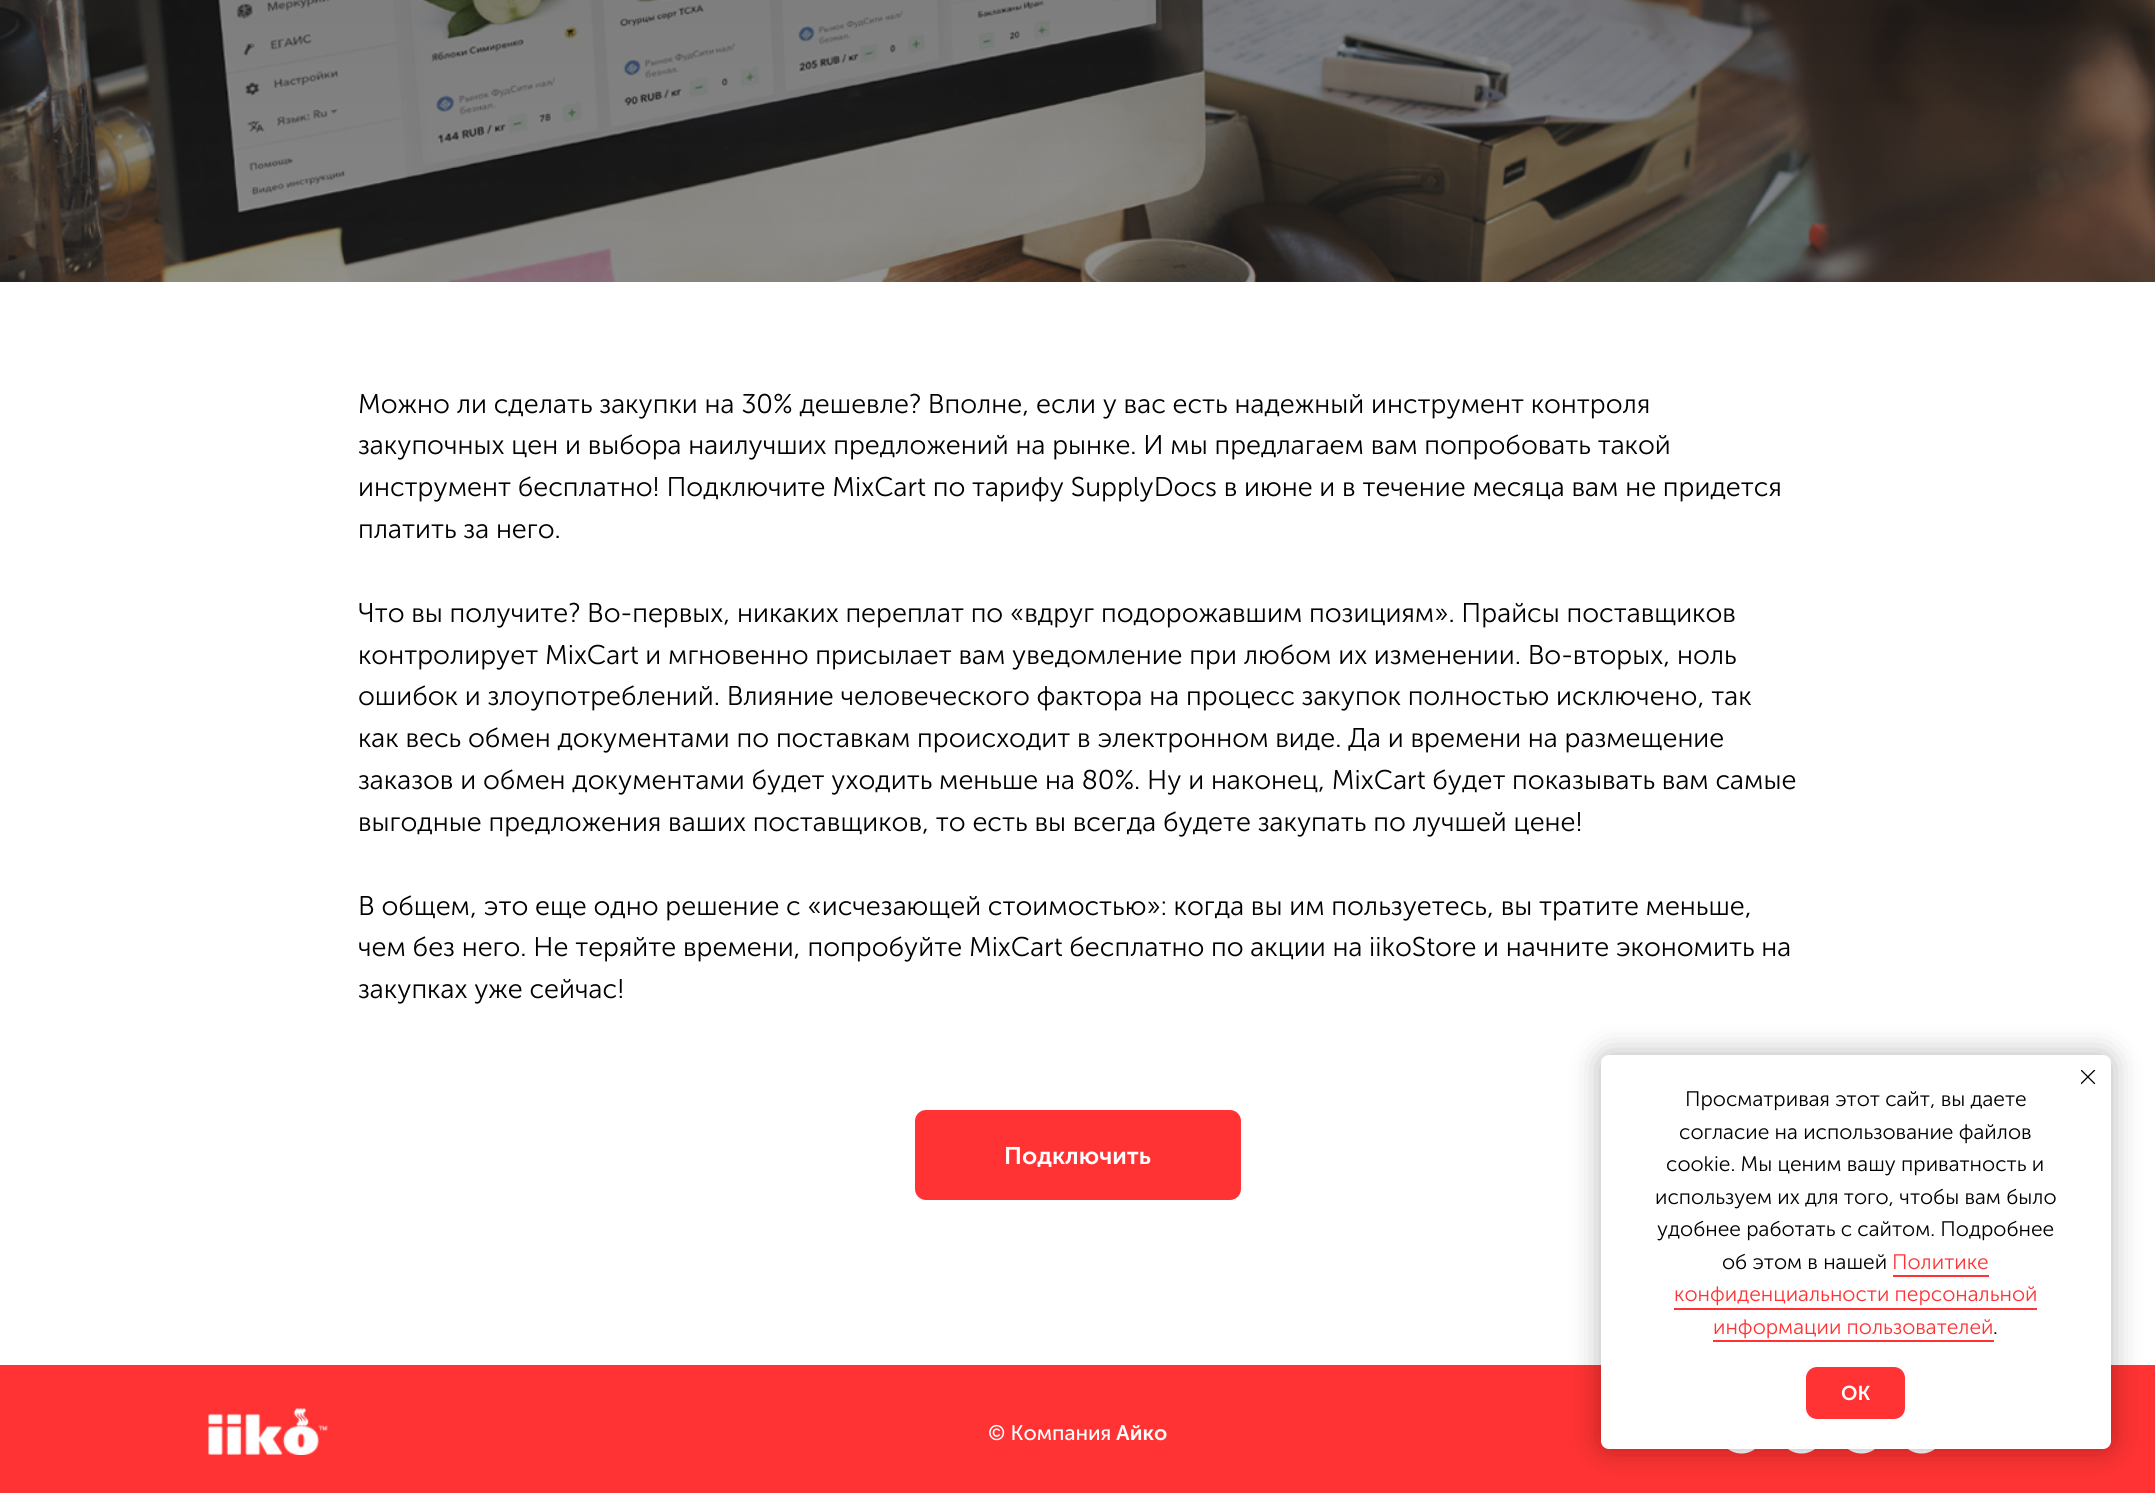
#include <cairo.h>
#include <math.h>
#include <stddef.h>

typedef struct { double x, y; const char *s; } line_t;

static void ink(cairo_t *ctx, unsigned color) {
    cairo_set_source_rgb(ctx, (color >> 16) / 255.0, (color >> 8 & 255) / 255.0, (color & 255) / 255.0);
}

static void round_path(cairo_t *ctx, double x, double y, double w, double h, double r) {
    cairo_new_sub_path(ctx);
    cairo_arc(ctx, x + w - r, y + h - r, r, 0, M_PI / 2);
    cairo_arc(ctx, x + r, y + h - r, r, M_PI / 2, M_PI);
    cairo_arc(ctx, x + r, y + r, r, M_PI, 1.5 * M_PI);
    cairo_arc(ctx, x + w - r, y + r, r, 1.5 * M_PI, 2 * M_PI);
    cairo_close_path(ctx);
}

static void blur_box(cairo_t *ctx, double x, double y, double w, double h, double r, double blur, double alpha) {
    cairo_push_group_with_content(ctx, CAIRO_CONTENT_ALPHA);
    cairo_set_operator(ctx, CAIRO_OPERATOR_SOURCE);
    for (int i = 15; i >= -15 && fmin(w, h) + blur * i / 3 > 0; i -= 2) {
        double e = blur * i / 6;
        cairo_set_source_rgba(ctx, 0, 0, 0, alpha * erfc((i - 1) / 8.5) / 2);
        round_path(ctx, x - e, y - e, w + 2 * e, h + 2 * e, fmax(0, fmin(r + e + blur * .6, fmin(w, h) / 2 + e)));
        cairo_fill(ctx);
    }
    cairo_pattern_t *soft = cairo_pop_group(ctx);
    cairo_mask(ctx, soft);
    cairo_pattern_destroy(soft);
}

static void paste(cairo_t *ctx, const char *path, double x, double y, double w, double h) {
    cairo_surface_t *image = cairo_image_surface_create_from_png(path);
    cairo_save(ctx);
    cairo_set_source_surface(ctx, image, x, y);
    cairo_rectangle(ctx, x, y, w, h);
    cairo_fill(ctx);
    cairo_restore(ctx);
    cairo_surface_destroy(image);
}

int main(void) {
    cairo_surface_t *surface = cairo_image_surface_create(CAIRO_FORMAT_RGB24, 2155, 1493);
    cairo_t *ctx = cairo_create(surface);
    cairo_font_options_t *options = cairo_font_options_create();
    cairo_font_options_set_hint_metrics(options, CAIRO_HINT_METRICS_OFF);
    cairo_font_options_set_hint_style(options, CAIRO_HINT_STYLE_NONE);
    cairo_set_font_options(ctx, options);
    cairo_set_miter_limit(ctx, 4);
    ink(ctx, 0xFFFFFF);
    cairo_paint(ctx);
    paste(ctx, "media/1.png", 0, 0, 2155, 282);
    cairo_select_font_face(ctx, "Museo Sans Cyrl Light", CAIRO_FONT_SLANT_NORMAL, CAIRO_FONT_WEIGHT_NORMAL);
    cairo_set_font_size(ctx, 27);
    ink(ctx, 0x000000);
    {
        static const line_t items[] = {
            {358, 413, "Можно ли сделать закупки на 30% дешевле? Вполне, если у вас есть надежный инструмент контроля"},
            {358, 454, "закупочных цен и выбора наилучших предложений на рынке. И мы предлагаем вам попробовать такой"},
            {358, 496, "инструмент бесплатно! Подключите MixCart по тарифу SupplyDocs в июне и в течение месяца вам не придется"},
            {358, 538, "платить за него."},
            {358, 622, "Что вы получите? Во-первых, никаких переплат по «вдруг подорожавшим позициям». Прайсы поставщиков"},
            {358, 664, "контролирует MixCart и мгновенно присылает вам уведомление при любом их изменении. Во-вторых, ноль"},
            {358, 705, "ошибок и злоупотреблений. Влияние человеческого фактора на процесс закупок полностью исключено, так"},
            {358, 747, "как весь обмен документами по поставкам происходит в электронном виде. Да и времени на размещение"},
            {358, 789, "заказов и обмен документами будет уходить меньше на 80%. Ну и наконец, MixCart будет показывать вам самые"},
            {358, 831, "выгодные предложения ваших поставщиков, то есть вы всегда будете закупать по лучшей цене!"},
            {358, 915, "В общем, это еще одно решение с «исчезающей стоимостью»: когда вы им пользуетесь, вы тратите меньше,"},
            {358, 956, "чем без него. Не теряйте времени, попробуйте MixCart бесплатно по акции на iikoStore и начните экономить на"},
            {358, 998, "закупках уже сейчас!"},
        };
        for (size_t i = 0; i < sizeof items / sizeof *items; i++) {
            cairo_move_to(ctx, items[i].x, items[i].y);
            cairo_show_text(ctx, items[i].s);
        }
    }
    ink(ctx, 0xFF3333);
    cairo_rectangle(ctx, 0, 1365, 2155, 128);
    cairo_fill(ctx);
    paste(ctx, "media/4.png", 1728, 1449, 27, 5);
    paste(ctx, "media/4.png", 1788, 1449, 27, 5);
    paste(ctx, "media/4.png", 1848, 1449, 27, 5);
    paste(ctx, "media/4.png", 1908, 1449, 27, 5);
    ink(ctx, 0x000000);
    blur_box(ctx, 1601, 1055, 510, 394, 8, 15, 0.3);
    ink(ctx, 0xFFFFFF);
    round_path(ctx, 1601, 1055, 510, 394, 8);
    cairo_fill(ctx);
    paste(ctx, "media/2.png", 2081, 1070, 15, 15);
    cairo_set_font_size(ctx, 21);
    ink(ctx, 0x000000);
    {
        static const line_t items[] = {
            {1685, 1106, "Просматривая этот сайт, вы даете"},
            {1679, 1139, "согласие на использование файлов"},
            {1666, 1171, "cookie. Мы ценим вашу приватность и"},
            {1655, 1204, "используем их для того, чтобы вам было"},
            {1657, 1236, "удобнее работать с сайтом. Подробнее"},
            {1722, 1269, "об этом в нашей"},
        };
        for (size_t i = 0; i < sizeof items / sizeof *items; i++) {
            cairo_move_to(ctx, items[i].x, items[i].y);
            cairo_show_text(ctx, items[i].s);
        }
    }
    ink(ctx, 0xFF3333);
    cairo_move_to(ctx, 1892, 1269);
    cairo_show_text(ctx, "Политике");
    cairo_rectangle(ctx, 1893, 1275, 96, 2);
    cairo_fill(ctx);
    cairo_move_to(ctx, 1674, 1301);
    cairo_show_text(ctx, "конфиденциальности персональной");
    cairo_rectangle(ctx, 1674, 1308, 363, 2);
    cairo_fill(ctx);
    cairo_move_to(ctx, 1713, 1334);
    cairo_show_text(ctx, "информации пользователей");
    cairo_rectangle(ctx, 1713, 1340, 281, 2);
    cairo_fill(ctx);
    ink(ctx, 0x000000);
    cairo_move_to(ctx, 1993, 1334);
    cairo_show_text(ctx, ".");
    ink(ctx, 0xFF3333);
    round_path(ctx, 1806, 1367, 99, 52, 11);
    cairo_fill(ctx);
    cairo_select_font_face(ctx, "Museo Sans Cyrl SemiBold", CAIRO_FONT_SLANT_NORMAL, CAIRO_FONT_WEIGHT_NORMAL);
    cairo_set_font_size(ctx, 20);
    ink(ctx, 0xFFFFFF);
    cairo_move_to(ctx, 1841, 1400);
    cairo_show_text(ctx, "OK");
    paste(ctx, "media/3.png", 208, 1408, 120, 47);
    cairo_select_font_face(ctx, "Museo Sans Cyrl", CAIRO_FONT_SLANT_NORMAL, CAIRO_FONT_WEIGHT_NORMAL);
    cairo_set_font_size(ctx, 21);
    cairo_move_to(ctx, 988, 1440);
    cairo_show_text(ctx, "© Компания");
    cairo_select_font_face(ctx, "Museo Sans Cyrl SemiBold", CAIRO_FONT_SLANT_NORMAL, CAIRO_FONT_WEIGHT_NORMAL);
    cairo_move_to(ctx, 1116, 1440);
    cairo_show_text(ctx, "Айко");
    ink(ctx, 0xFF3333);
    round_path(ctx, 915, 1110, 326, 90, 11);
    cairo_fill(ctx);
    cairo_set_font_size(ctx, 24);
    ink(ctx, 0xFFFFFF);
    cairo_move_to(ctx, 1004, 1164);
    cairo_show_text(ctx, "Подключить");
    cairo_surface_write_to_png(surface, "image.png");
    cairo_font_options_destroy(options);
    cairo_destroy(ctx);
    cairo_surface_destroy(surface);
    return 0;
}
